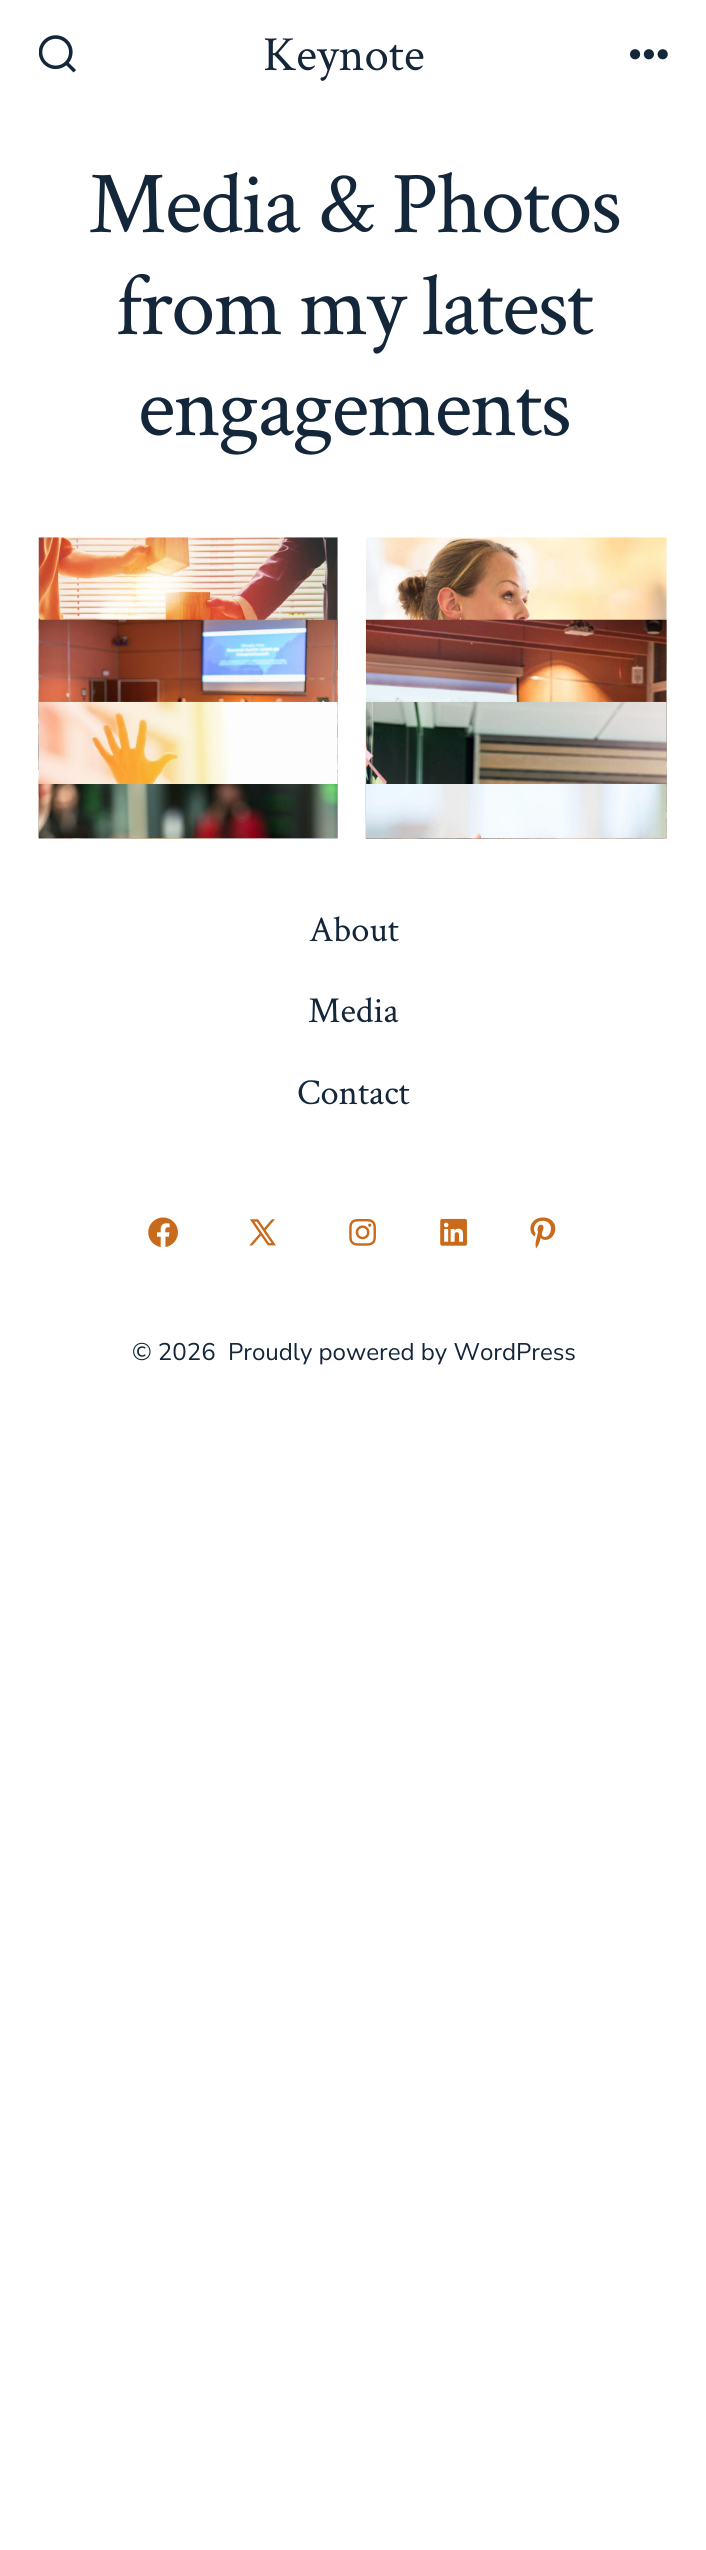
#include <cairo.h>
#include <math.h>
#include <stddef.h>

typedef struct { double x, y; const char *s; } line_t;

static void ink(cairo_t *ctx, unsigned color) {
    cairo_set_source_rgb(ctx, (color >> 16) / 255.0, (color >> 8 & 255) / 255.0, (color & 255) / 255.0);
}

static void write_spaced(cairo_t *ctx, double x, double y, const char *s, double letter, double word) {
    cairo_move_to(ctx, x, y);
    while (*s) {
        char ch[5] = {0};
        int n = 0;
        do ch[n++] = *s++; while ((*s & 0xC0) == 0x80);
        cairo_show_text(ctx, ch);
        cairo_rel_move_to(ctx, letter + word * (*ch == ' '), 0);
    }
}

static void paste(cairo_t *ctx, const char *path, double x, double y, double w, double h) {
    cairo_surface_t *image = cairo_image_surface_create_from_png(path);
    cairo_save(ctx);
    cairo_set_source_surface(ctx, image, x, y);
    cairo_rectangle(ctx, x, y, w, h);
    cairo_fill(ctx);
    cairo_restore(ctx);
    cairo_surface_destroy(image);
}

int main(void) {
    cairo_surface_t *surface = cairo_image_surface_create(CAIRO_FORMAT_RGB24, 706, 2550);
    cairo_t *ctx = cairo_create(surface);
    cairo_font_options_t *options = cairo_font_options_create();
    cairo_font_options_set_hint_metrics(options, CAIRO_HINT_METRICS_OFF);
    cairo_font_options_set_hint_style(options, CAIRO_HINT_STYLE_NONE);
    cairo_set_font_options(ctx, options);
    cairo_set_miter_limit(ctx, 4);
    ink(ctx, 0xFFFFFF);
    cairo_paint(ctx);
    paste(ctx, "media/1.png", 39, 35, 37, 38);
    cairo_select_font_face(ctx, "Crimson Text", CAIRO_FONT_SLANT_NORMAL, CAIRO_FONT_WEIGHT_NORMAL);
    cairo_set_font_size(ctx, 49);
    ink(ctx, 0x13263A);
    cairo_move_to(ctx, 263, 70);
    cairo_show_text(ctx, "Keynote");
    paste(ctx, "media/2.png", 630, 49, 38, 11);
    cairo_set_font_size(ctx, 88.5);
    {
        static const line_t items[] = {
            {88, 232, "Media & Photos"},
            {116, 334, "from my latest"},
            {138, 435, "engagements"},
        };
        for (size_t i = 0; i < sizeof items / sizeof *items; i++) {
            write_spaced(ctx, items[i].x, items[i].y, items[i].s, -1.75, 0);
        }
    }
    paste(ctx, "media/3.png", 38, 537, 300, 225);
    paste(ctx, "media/4.png", 365, 537, 302, 302);
    paste(ctx, "media/5.png", 38, 619, 300, 220);
    paste(ctx, "media/6.png", 365, 619, 302, 220);
    paste(ctx, "media/7.png", 38, 701, 300, 138);
    paste(ctx, "media/8.png", 365, 701, 302, 138);
    paste(ctx, "media/9.png", 38, 784, 300, 55);
    paste(ctx, "media/10.png", 366, 784, 301, 55);
    cairo_set_font_size(ctx, 36.5);
    {
        static const line_t items[] = {
            {309, 941, "About"},
            {308, 1022, "Media"},
            {297, 1104, "Contact"},
        };
        for (size_t i = 0; i < sizeof items / sizeof *items; i++) {
            cairo_move_to(ctx, items[i].x, items[i].y);
            cairo_show_text(ctx, items[i].s);
        }
    }
    paste(ctx, "media/11.png", 148, 1217, 30, 30);
    paste(ctx, "media/12.png", 249, 1219, 27, 27);
    paste(ctx, "media/13.png", 349, 1218, 27, 28);
    paste(ctx, "media/14.png", 440, 1218, 27, 28);
    paste(ctx, "media/15.png", 530, 1217, 26, 32);
    cairo_select_font_face(ctx, "Nunito Sans", CAIRO_FONT_SLANT_NORMAL, CAIRO_FONT_WEIGHT_NORMAL);
    cairo_set_font_size(ctx, 24.1);
    cairo_move_to(ctx, 132, 1360);
    cairo_show_text(ctx, "© 2026");
    cairo_move_to(ctx, 228, 1360);
    cairo_show_text(ctx, "Proudly powered by WordPress");
    cairo_surface_write_to_png(surface, "image.png");
    cairo_font_options_destroy(options);
    cairo_destroy(ctx);
    cairo_surface_destroy(surface);
    return 0;
}
